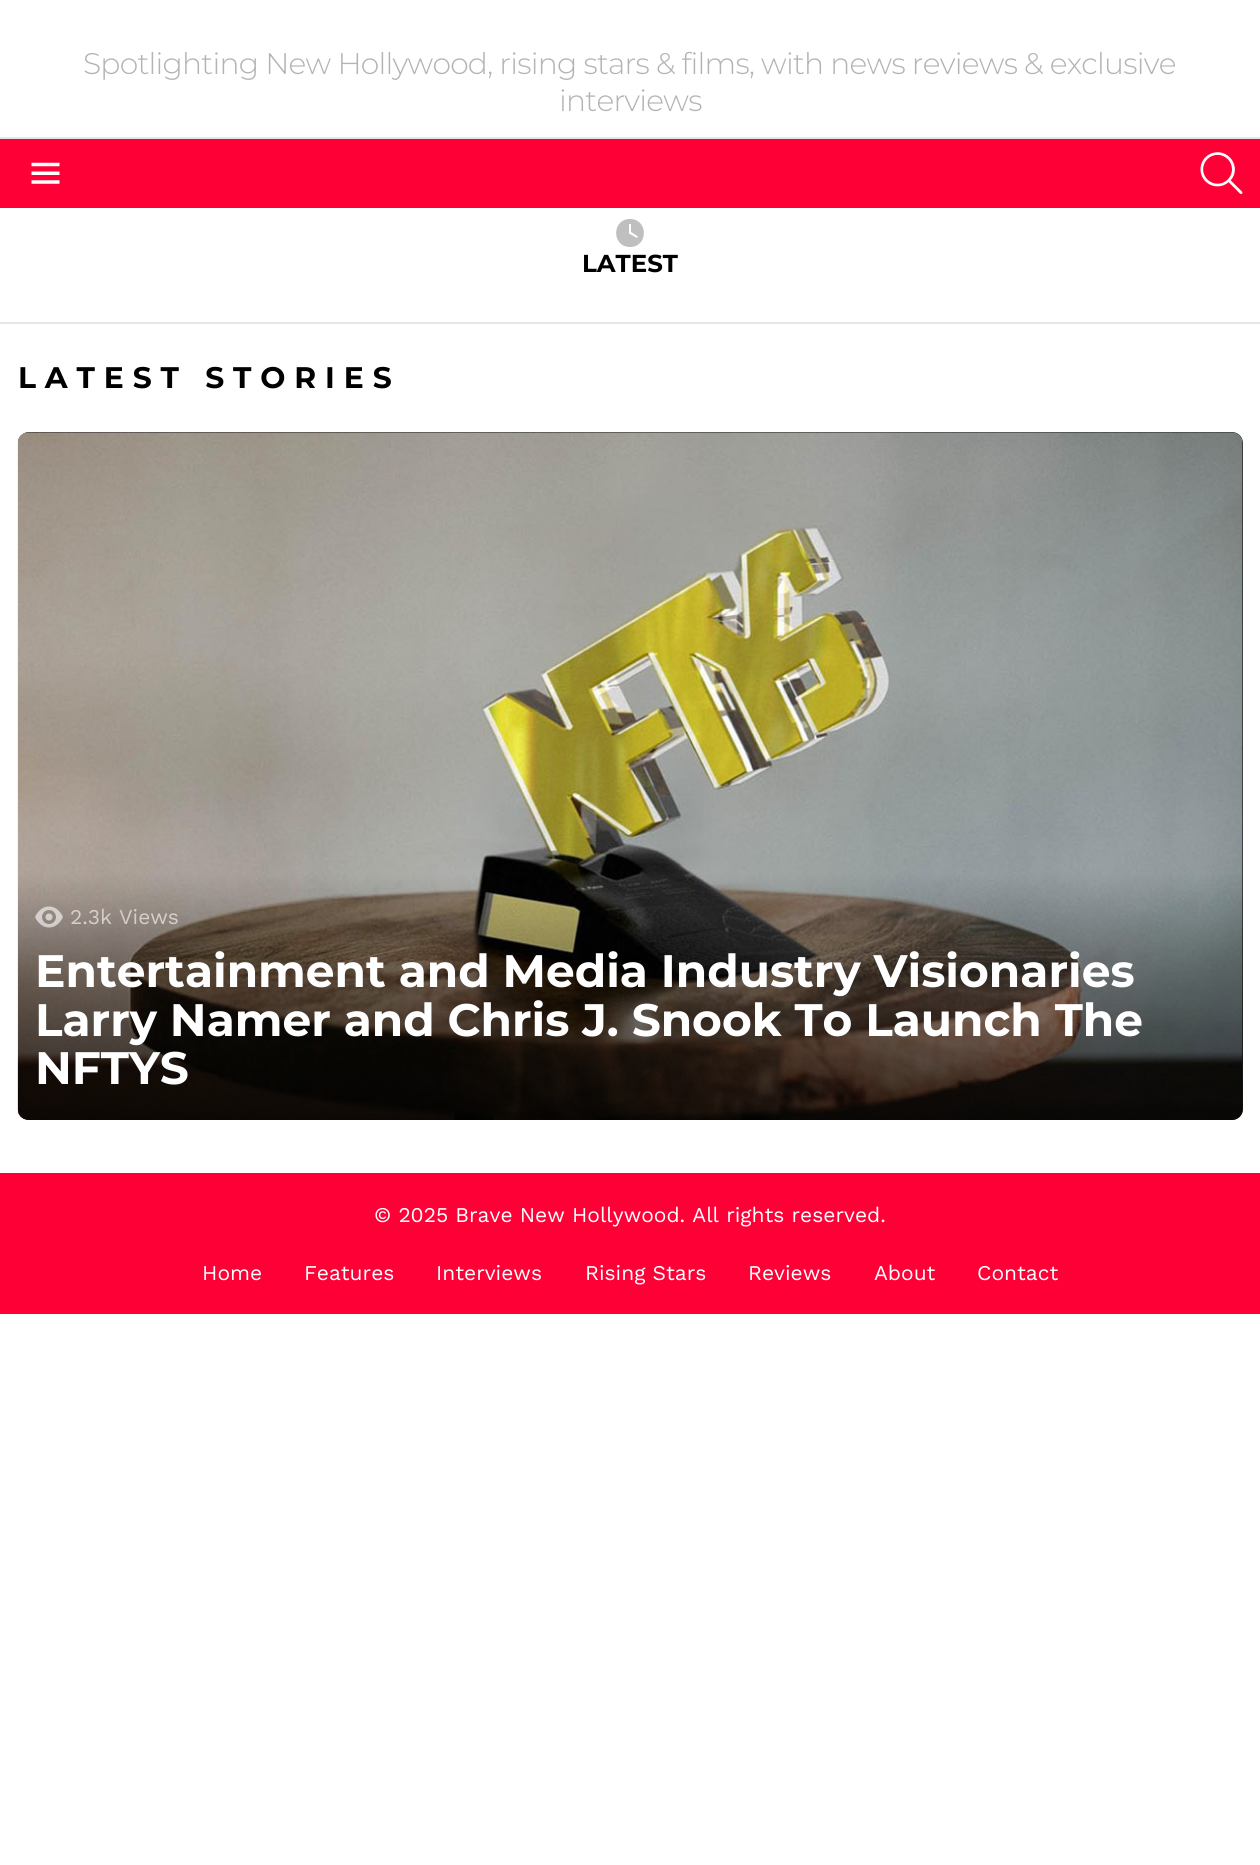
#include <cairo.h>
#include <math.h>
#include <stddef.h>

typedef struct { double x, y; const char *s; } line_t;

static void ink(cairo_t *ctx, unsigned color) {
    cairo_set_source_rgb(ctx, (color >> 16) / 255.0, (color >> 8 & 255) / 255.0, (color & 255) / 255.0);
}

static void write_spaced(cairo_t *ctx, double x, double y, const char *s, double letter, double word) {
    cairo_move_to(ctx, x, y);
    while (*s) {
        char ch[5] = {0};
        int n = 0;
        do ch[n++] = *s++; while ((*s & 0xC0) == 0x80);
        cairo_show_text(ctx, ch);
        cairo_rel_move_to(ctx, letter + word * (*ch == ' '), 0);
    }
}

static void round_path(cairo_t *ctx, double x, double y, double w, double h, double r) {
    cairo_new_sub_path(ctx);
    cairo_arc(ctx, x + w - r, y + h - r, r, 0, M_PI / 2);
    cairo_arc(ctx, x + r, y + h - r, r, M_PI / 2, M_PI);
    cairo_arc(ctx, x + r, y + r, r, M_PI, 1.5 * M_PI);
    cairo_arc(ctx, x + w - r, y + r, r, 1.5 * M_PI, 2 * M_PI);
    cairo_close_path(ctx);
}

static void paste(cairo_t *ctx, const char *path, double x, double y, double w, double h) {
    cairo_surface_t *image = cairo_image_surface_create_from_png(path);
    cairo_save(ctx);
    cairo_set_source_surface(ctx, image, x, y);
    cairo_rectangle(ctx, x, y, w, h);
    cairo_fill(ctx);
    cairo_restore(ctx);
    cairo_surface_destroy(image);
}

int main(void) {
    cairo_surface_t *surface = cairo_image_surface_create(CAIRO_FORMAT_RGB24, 1260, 1865);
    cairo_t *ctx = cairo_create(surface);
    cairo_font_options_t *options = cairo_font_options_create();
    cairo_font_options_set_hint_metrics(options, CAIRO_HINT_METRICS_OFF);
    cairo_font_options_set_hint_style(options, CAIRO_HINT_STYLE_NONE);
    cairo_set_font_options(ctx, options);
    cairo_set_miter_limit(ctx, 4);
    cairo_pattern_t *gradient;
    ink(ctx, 0xFFFFFF);
    cairo_paint(ctx);
    cairo_select_font_face(ctx, "Montserrat Light", CAIRO_FONT_SLANT_NORMAL, CAIRO_FONT_WEIGHT_NORMAL);
    cairo_set_font_size(ctx, 29.75);
    ink(ctx, 0xB3B3B3);
    write_spaced(ctx, 83, 74, "Spotlighting New Hollywood, rising stars & films, with news reviews & exclusive", -0.75, 0);
    write_spaced(ctx, 559, 111, "interviews", -0.75, 0);
    ink(ctx, 0xE6E6E6);
    cairo_rectangle(ctx, 0, 137, 1260, 2);
    cairo_fill(ctx);
    ink(ctx, 0xFF0036);
    cairo_rectangle(ctx, 0, 139, 1260, 69);
    cairo_fill(ctx);
    paste(ctx, "media/1.png", 31, 162, 29, 22);
    paste(ctx, "media/2.png", 1200, 152, 43, 43);
    ink(ctx, 0xBFBFBF);
    cairo_new_path(ctx);
    cairo_move_to(ctx, 630, 219);
    cairo_curve_to(ctx, 611.5, 219, 611.5, 247, 630, 247);
    cairo_curve_to(ctx, 648.5, 247, 648.5, 219, 630, 219);
    cairo_close_path(ctx);
    cairo_move_to(ctx, 637, 238);
    cairo_line_to(ctx, 629, 233.5);
    cairo_line_to(ctx, 629, 224);
    cairo_line_to(ctx, 631, 224);
    cairo_line_to(ctx, 631, 232);
    cairo_line_to(ctx, 638, 236.5);
    cairo_close_path(ctx);
    cairo_fill(ctx);
    cairo_select_font_face(ctx, "Montserrat", CAIRO_FONT_SLANT_NORMAL, CAIRO_FONT_WEIGHT_BOLD);
    cairo_set_font_size(ctx, 24.5);
    ink(ctx, 0x000000);
    cairo_move_to(ctx, 582, 272);
    cairo_show_text(ctx, "LATEST");
    ink(ctx, 0xE6E6E6);
    cairo_rectangle(ctx, 0, 322, 1260, 2);
    cairo_fill(ctx);
    cairo_set_font_size(ctx, 29.75);
    ink(ctx, 0x000000);
    write_spaced(ctx, 18, 388, "LATEST STORIES", 8.9, 0);
    ink(ctx, 0x333333);
    round_path(ctx, 18, 432, 1225, 688, 11);
    cairo_fill(ctx);
    paste(ctx, "media/3.png", 17, 432, 1226, 688);
    gradient = cairo_pattern_create_linear(630, 873, 630, 1120);
    cairo_pattern_add_color_stop_rgba(gradient, 0, 0, 0, 0, 0);
    cairo_pattern_add_color_stop_rgba(gradient, 1, 0, 0, 0, 0.75);
    cairo_set_source(ctx, gradient);
    cairo_pattern_destroy(gradient);
    cairo_new_path(ctx);
    cairo_move_to(ctx, 18, 873);
    cairo_line_to(ctx, 1243, 873);
    cairo_line_to(ctx, 1243, 1109);
    cairo_curve_to(ctx, 1243, 1115, 1238, 1120, 1232, 1120);
    cairo_line_to(ctx, 29, 1120);
    cairo_curve_to(ctx, 23, 1120, 18, 1115, 18, 1109);
    cairo_close_path(ctx);
    cairo_fill(ctx);
    paste(ctx, "media/4.png", 35, 906, 28, 22);
    cairo_select_font_face(ctx, "Work Sans", CAIRO_FONT_SLANT_NORMAL, CAIRO_FONT_WEIGHT_NORMAL);
    cairo_set_font_size(ctx, 21);
    ink(ctx, 0xD3CFCC);
    cairo_move_to(ctx, 70, 924);
    cairo_show_text(ctx, "2.3k");
    cairo_move_to(ctx, 119, 924);
    cairo_show_text(ctx, "Views");
    cairo_select_font_face(ctx, "Montserrat", CAIRO_FONT_SLANT_NORMAL, CAIRO_FONT_WEIGHT_BOLD);
    cairo_set_font_size(ctx, 45.5);
    ink(ctx, 0xFFFFFF);
    {
        static const line_t items[] = {
            {35, 987, "Entertainment and Media Industry Visionaries"},
            {35, 1036, "Larry Namer and Chris J. Snook To Launch The"},
            {35, 1084, "NFTYS"},
        };
        for (size_t i = 0; i < sizeof items / sizeof *items; i++) {
            cairo_move_to(ctx, items[i].x, items[i].y);
            cairo_show_text(ctx, items[i].s);
        }
    }
    ink(ctx, 0xFF0036);
    cairo_rectangle(ctx, 0, 1173, 1260, 141);
    cairo_fill(ctx);
    cairo_select_font_face(ctx, "Work Sans", CAIRO_FONT_SLANT_NORMAL, CAIRO_FONT_WEIGHT_NORMAL);
    cairo_set_font_size(ctx, 21);
    ink(ctx, 0xFFFFFF);
    {
        static const line_t items[] = {
            {374, 1222, "© 2025 Brave New Hollywood. All rights reserved."},
            {202, 1280, "Home"},
            {304, 1280, "Features"},
            {436, 1280, "Interviews"},
            {585, 1280, "Rising Stars"},
            {748, 1280, "Reviews"},
            {874, 1280, "About"},
            {977, 1280, "Contact"},
        };
        for (size_t i = 0; i < sizeof items / sizeof *items; i++) {
            cairo_move_to(ctx, items[i].x, items[i].y);
            cairo_show_text(ctx, items[i].s);
        }
    }
    cairo_surface_write_to_png(surface, "image.png");
    cairo_font_options_destroy(options);
    cairo_destroy(ctx);
    cairo_surface_destroy(surface);
    return 0;
}
